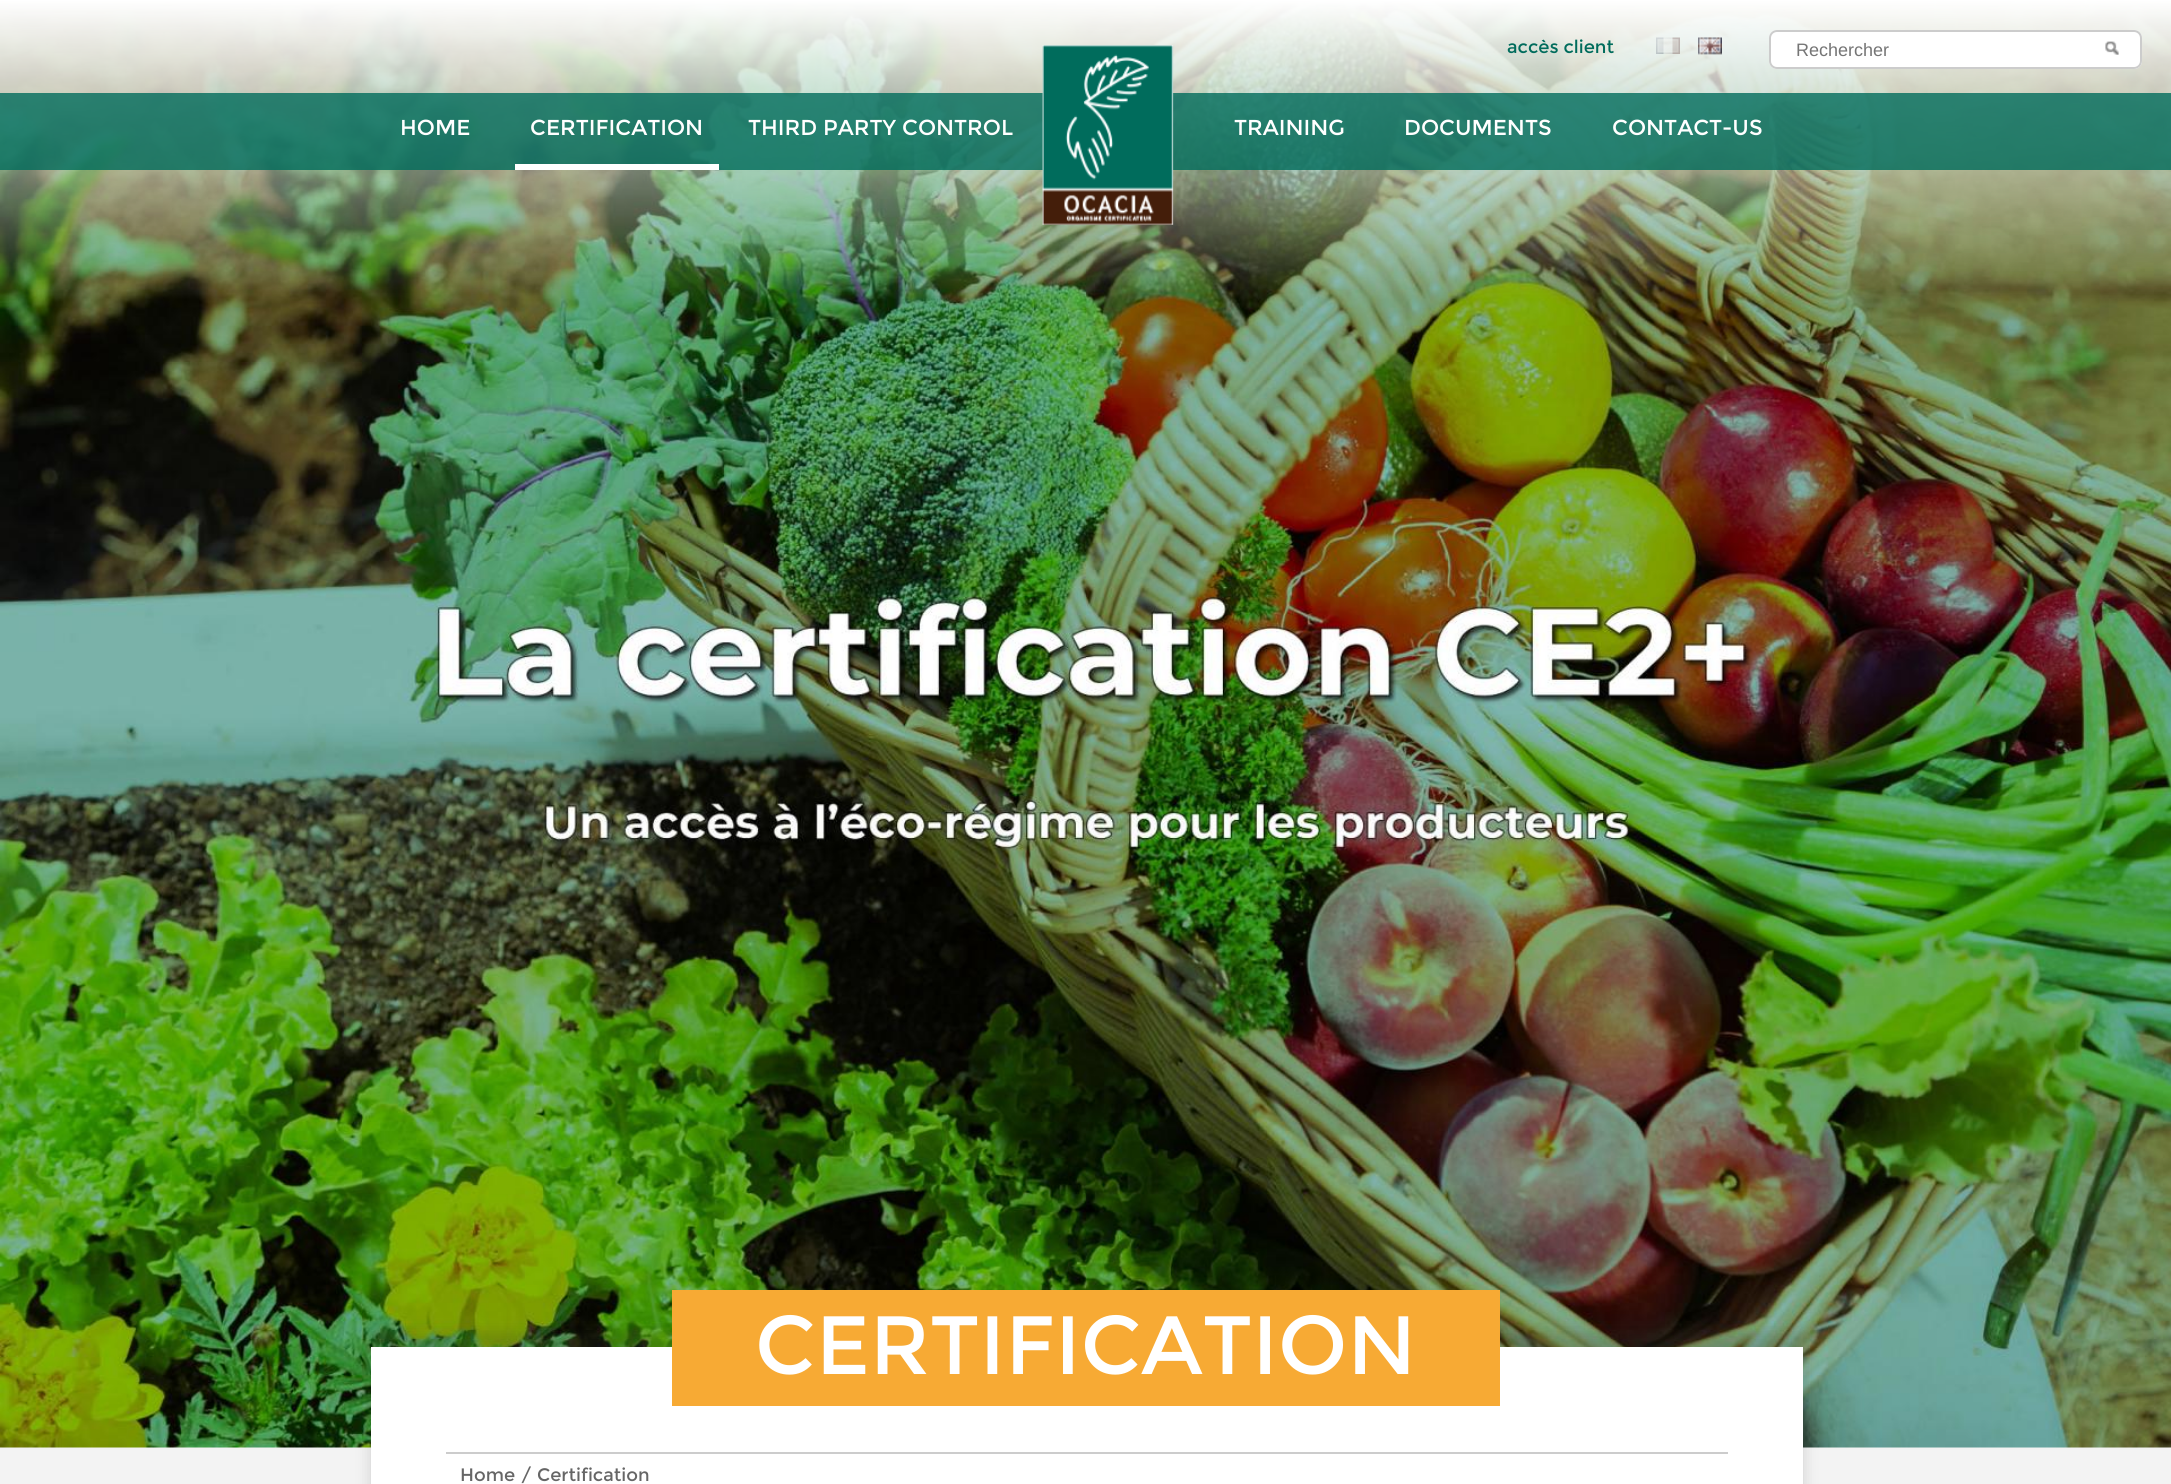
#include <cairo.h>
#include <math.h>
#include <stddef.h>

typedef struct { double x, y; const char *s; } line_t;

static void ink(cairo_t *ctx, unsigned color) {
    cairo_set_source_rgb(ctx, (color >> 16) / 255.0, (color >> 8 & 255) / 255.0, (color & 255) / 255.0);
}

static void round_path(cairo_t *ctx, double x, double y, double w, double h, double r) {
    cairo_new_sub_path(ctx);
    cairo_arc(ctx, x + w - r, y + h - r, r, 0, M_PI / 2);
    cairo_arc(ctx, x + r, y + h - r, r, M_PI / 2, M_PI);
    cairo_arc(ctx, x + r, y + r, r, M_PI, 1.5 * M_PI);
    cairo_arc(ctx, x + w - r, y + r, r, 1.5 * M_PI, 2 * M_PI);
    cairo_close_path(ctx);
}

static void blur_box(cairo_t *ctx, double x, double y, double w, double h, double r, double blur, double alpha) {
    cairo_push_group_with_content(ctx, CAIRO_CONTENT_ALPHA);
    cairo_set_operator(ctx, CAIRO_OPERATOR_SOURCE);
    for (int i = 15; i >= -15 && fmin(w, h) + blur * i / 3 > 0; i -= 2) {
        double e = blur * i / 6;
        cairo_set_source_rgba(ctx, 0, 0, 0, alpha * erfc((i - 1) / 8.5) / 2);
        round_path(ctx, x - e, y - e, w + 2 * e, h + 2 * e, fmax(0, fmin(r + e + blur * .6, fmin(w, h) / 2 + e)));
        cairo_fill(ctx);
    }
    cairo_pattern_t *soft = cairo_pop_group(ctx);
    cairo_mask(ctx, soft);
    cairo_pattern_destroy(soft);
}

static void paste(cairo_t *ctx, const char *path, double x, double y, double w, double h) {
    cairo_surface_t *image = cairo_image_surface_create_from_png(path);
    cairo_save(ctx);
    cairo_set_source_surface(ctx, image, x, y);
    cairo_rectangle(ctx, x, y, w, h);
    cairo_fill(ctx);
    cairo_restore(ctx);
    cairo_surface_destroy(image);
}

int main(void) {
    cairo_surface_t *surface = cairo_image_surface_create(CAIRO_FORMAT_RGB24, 2171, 1484);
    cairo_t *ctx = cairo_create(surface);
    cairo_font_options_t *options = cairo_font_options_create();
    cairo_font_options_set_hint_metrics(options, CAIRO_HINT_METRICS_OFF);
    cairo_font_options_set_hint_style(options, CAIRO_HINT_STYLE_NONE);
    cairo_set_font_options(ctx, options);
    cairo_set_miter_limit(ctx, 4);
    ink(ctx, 0xF3F3F3);
    cairo_paint(ctx);
    paste(ctx, "media/5.png", 0, 0, 2171, 1448);
    cairo_select_font_face(ctx, "Montserrat", CAIRO_FONT_SLANT_NORMAL, CAIRO_FONT_WEIGHT_NORMAL);
    cairo_set_font_size(ctx, 18);
    ink(ctx, 0x006C5C);
    cairo_move_to(ctx, 1507, 53);
    cairo_show_text(ctx, "accès client");
    paste(ctx, "media/1.png", 1656, 37, 24, 17);
    paste(ctx, "media/2.png", 1698, 37, 24, 18);
    ink(ctx, 0xFFFFFF);
    round_path(ctx, 1769, 30, 373, 39, 8);
    cairo_fill(ctx);
    paste(ctx, "media/3.png", 2105, 41, 14, 14);
    round_path(ctx, 1770, 31, 371, 37, 7);
    ink(ctx, 0xCCCCCC);
    cairo_stroke(ctx);
    cairo_select_font_face(ctx, "Liberation Sans", CAIRO_FONT_SLANT_NORMAL, CAIRO_FONT_WEIGHT_NORMAL);
    ink(ctx, 0x757575);
    cairo_move_to(ctx, 1796, 56);
    cairo_show_text(ctx, "Rechercher");
    cairo_set_source_rgba(ctx, 0, 0.424, 0.361, 0.8);
    cairo_rectangle(ctx, 0, 93, 2171, 77);
    cairo_fill(ctx);
    cairo_select_font_face(ctx, "Montserrat", CAIRO_FONT_SLANT_NORMAL, CAIRO_FONT_WEIGHT_NORMAL);
    cairo_set_font_size(ctx, 21.6);
    ink(ctx, 0xFFFFFF);
    cairo_move_to(ctx, 400, 135);
    cairo_show_text(ctx, "HOME");
    cairo_rectangle(ctx, 515, 164, 204, 6);
    cairo_fill(ctx);
    cairo_move_to(ctx, 530, 135);
    cairo_show_text(ctx, "CERTIFICATION");
    cairo_move_to(ctx, 748, 135);
    cairo_show_text(ctx, "THIRD PARTY CONTROL");
    paste(ctx, "media/4.png", 1042, 45, 132, 180);
    {
        static const line_t items[] = {
            {1234, 135, "TRAINING"},
            {1404, 135, "DOCUMENTS"},
            {1612, 135, "CONTACT-US"},
        };
        for (size_t i = 0; i < sizeof items / sizeof *items; i++) {
            cairo_move_to(ctx, items[i].x, items[i].y);
            cairo_show_text(ctx, items[i].s);
        }
    }
    ink(ctx, 0x323232);
    blur_box(ctx, 371, 1332, 1432, 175, 0, 7.5, 0.2);
    ink(ctx, 0xFFFFFF);
    cairo_rectangle(ctx, 371, 1347, 1432, 137);
    cairo_fill(ctx);
    ink(ctx, 0xF7AA34);
    cairo_rectangle(ctx, 672, 1290, 828, 116);
    cairo_fill(ctx);
    cairo_set_font_size(ctx, 82.5);
    ink(ctx, 0xFFFFFF);
    cairo_move_to(ctx, 755, 1374);
    cairo_show_text(ctx, "CERTIFICATION");
    ink(ctx, 0xCCCCCC);
    cairo_rectangle(ctx, 446, 1452, 1282, 2);
    cairo_fill(ctx);
    cairo_set_font_size(ctx, 18);
    ink(ctx, 0x666666);
    {
        static const line_t items[] = {
            {460, 1481, "Home"},
            {521, 1481, "/"},
            {537, 1481, "Certification"},
        };
        for (size_t i = 0; i < sizeof items / sizeof *items; i++) {
            cairo_move_to(ctx, items[i].x, items[i].y);
            cairo_show_text(ctx, items[i].s);
        }
    }
    cairo_surface_write_to_png(surface, "image.png");
    cairo_font_options_destroy(options);
    cairo_destroy(ctx);
    cairo_surface_destroy(surface);
    return 0;
}
